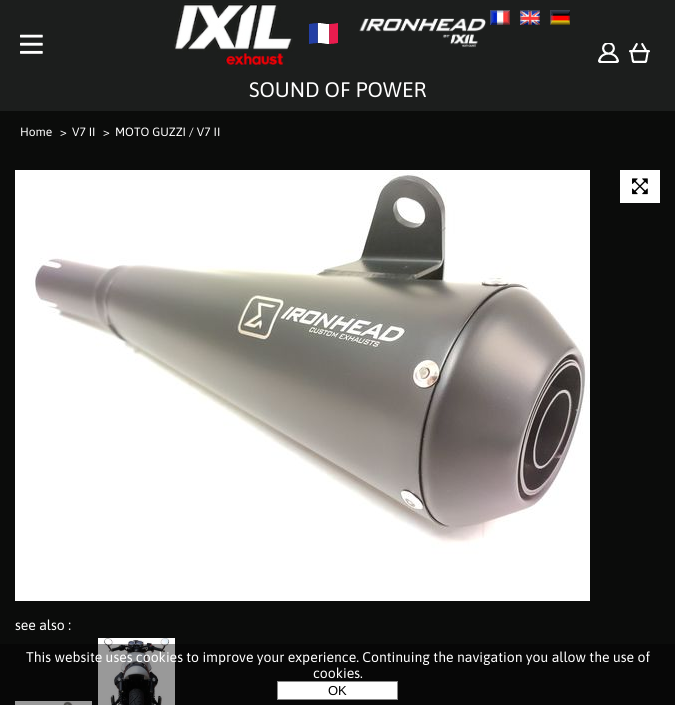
#include <cairo.h>
#include <math.h>
#include <stddef.h>

typedef struct { double x, y; const char *s; } line_t;

static void ink(cairo_t *ctx, unsigned color) {
    cairo_set_source_rgb(ctx, (color >> 16) / 255.0, (color >> 8 & 255) / 255.0, (color & 255) / 255.0);
}

static void paste(cairo_t *ctx, const char *path, double x, double y, double w, double h) {
    cairo_surface_t *image = cairo_image_surface_create_from_png(path);
    cairo_save(ctx);
    cairo_set_source_surface(ctx, image, x, y);
    cairo_rectangle(ctx, x, y, w, h);
    cairo_fill(ctx);
    cairo_restore(ctx);
    cairo_surface_destroy(image);
}

int main(void) {
    cairo_surface_t *surface = cairo_image_surface_create(CAIRO_FORMAT_RGB24, 675, 705);
    cairo_t *ctx = cairo_create(surface);
    cairo_font_options_t *options = cairo_font_options_create();
    cairo_font_options_set_hint_metrics(options, CAIRO_HINT_METRICS_OFF);
    cairo_font_options_set_hint_style(options, CAIRO_HINT_STYLE_NONE);
    cairo_set_font_options(ctx, options);
    cairo_set_miter_limit(ctx, 4);
    ink(ctx, 0x0B0C0B);
    cairo_paint(ctx);
    ink(ctx, 0x070707);
    cairo_rectangle(ctx, 0, 644, 675, 61);
    cairo_fill(ctx);
    ink(ctx, 0x1C1E1D);
    cairo_rectangle(ctx, 0, 0, 675, 111);
    cairo_fill(ctx);
    paste(ctx, "media/1.png", 20, 34, 23, 20);
    paste(ctx, "media/2.png", 490, 10, 20, 15);
    paste(ctx, "media/3.png", 520, 10, 20, 15);
    paste(ctx, "media/4.png", 550, 10, 20, 15);
    paste(ctx, "media/5.png", 598, 43, 21, 20);
    paste(ctx, "media/6.png", 629, 43, 21, 20);
    paste(ctx, "media/7.png", 174, 3, 119, 64);
    paste(ctx, "media/8.png", 309, 23, 29, 21);
    paste(ctx, "media/9.png", 359, 18, 127, 30);
    cairo_select_font_face(ctx, "Asap", CAIRO_FONT_SLANT_NORMAL, CAIRO_FONT_WEIGHT_NORMAL);
    cairo_set_font_size(ctx, 21);
    ink(ctx, 0xFFFFFF);
    cairo_move_to(ctx, 249, 97);
    cairo_show_text(ctx, "SOUND OF POWER");
    cairo_set_font_size(ctx, 12);
    {
        static const line_t items[] = {
            {20, 136, "Home"},
            {60, 136, ">"},
            {72, 136, "V7 II"},
            {103, 136, ">"},
            {115, 136, "MOTO GUZZI / V7 II"},
        };
        for (size_t i = 0; i < sizeof items / sizeof *items; i++) {
            cairo_move_to(ctx, items[i].x, items[i].y);
            cairo_show_text(ctx, items[i].s);
        }
    }
    paste(ctx, "media/10.png", 15, 170, 575, 431);
    cairo_rectangle(ctx, 620, 170, 40, 33);
    cairo_fill(ctx);
    paste(ctx, "media/11.png", 632, 178, 16, 17);
    cairo_set_font_size(ctx, 14);
    cairo_move_to(ctx, 15, 630);
    cairo_show_text(ctx, "see also :");
    paste(ctx, "media/12.png", 15, 701, 77, 4);
    paste(ctx, "media/13.png", 98, 638, 77, 67);
    cairo_move_to(ctx, 26, 662);
    cairo_show_text(ctx, "This website uses cookies to improve your experience. Continuing the navigation you allow the use of");
    cairo_move_to(ctx, 313, 678);
    cairo_show_text(ctx, "cookies.");
    cairo_rectangle(ctx, 277.5, 681.5, 120, 18);
    cairo_fill_preserve(ctx);
    ink(ctx, 0x888888);
    cairo_set_line_width(ctx, 1);
    cairo_stroke(ctx);
    cairo_select_font_face(ctx, "Liberation Sans", CAIRO_FONT_SLANT_NORMAL, CAIRO_FONT_WEIGHT_NORMAL);
    cairo_set_font_size(ctx, 13);
    ink(ctx, 0x000000);
    cairo_move_to(ctx, 328, 695);
    cairo_show_text(ctx, "OK");
    cairo_surface_write_to_png(surface, "image.png");
    cairo_font_options_destroy(options);
    cairo_destroy(ctx);
    cairo_surface_destroy(surface);
    return 0;
}
